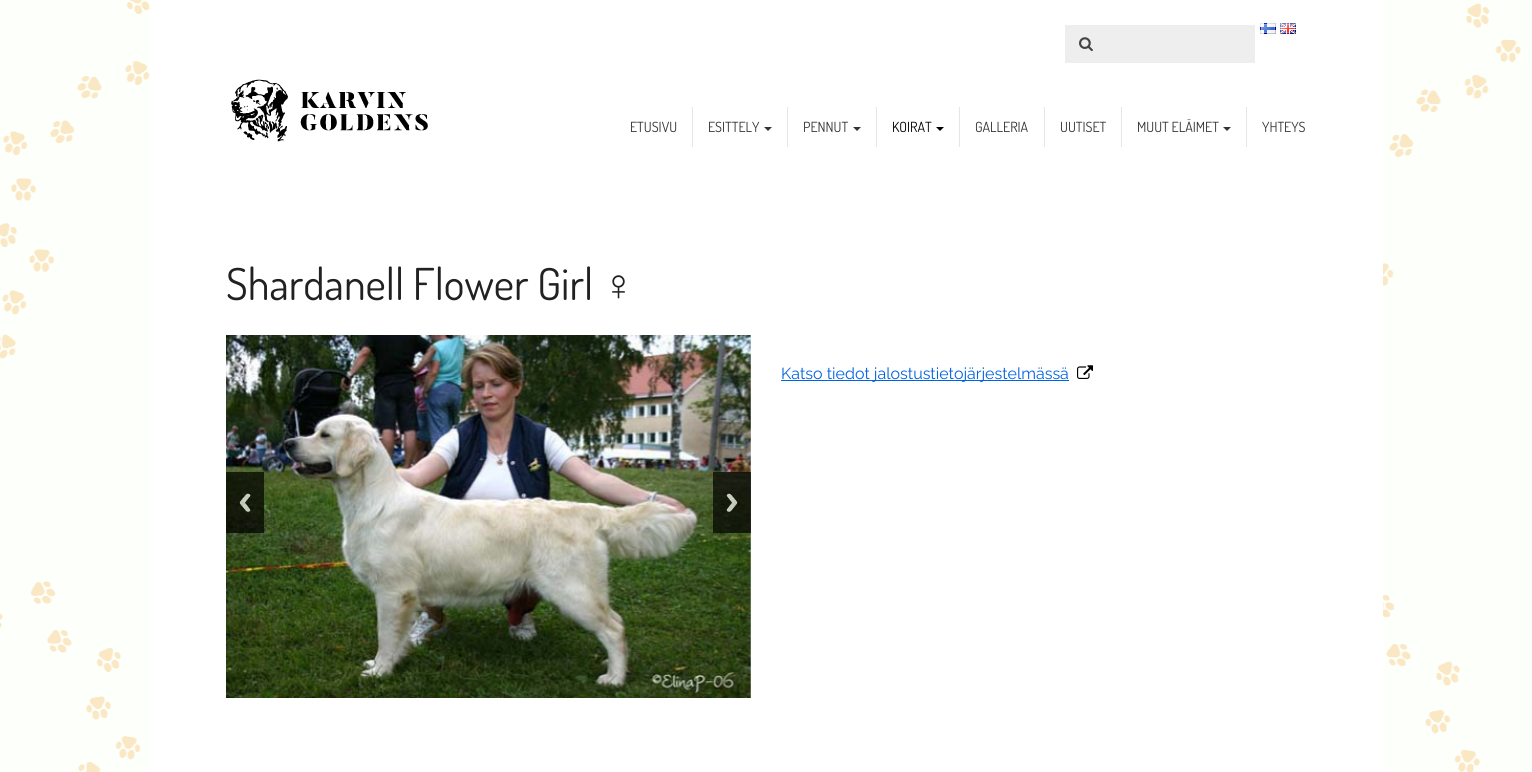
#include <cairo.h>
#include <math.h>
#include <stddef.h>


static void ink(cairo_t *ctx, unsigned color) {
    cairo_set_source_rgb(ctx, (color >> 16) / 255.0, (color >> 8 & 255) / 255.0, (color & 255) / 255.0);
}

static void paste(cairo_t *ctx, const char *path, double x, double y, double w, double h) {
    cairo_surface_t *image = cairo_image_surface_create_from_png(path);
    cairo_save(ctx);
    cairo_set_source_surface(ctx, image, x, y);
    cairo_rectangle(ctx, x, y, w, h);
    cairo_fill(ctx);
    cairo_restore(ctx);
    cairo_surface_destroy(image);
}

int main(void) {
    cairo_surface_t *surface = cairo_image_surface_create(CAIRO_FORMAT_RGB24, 1532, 772);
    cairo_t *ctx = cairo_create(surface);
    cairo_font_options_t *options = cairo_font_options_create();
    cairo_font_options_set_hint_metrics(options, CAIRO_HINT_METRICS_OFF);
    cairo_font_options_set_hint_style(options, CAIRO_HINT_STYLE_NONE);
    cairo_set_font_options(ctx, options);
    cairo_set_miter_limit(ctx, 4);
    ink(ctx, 0xFDFFFA);
    cairo_paint(ctx);
    paste(ctx, "media/1.png", 0, 0, 1521, 772);
    ink(ctx, 0xFFFFFF);
    cairo_rectangle(ctx, 150, 0, 1233, 772);
    cairo_fill(ctx);
    ink(ctx, 0xEEEEEE);
    cairo_rectangle(ctx, 1065, 25, 190, 38);
    cairo_fill(ctx);
    paste(ctx, "media/2.png", 1079, 37, 14, 15);
    paste(ctx, "media/3.png", 1260, 23, 16, 11);
    paste(ctx, "media/4.png", 1280, 23, 16, 11);
    paste(ctx, "media/5.png", 231, 79, 197, 63);
    cairo_select_font_face(ctx, "Dosis", CAIRO_FONT_SLANT_NORMAL, CAIRO_FONT_WEIGHT_NORMAL);
    cairo_set_font_size(ctx, 14);
    ink(ctx, 0x333333);
    cairo_move_to(ctx, 630, 132);
    cairo_show_text(ctx, "ETUSIVU");
    ink(ctx, 0xE6E6E6);
    cairo_rectangle(ctx, 692, 107, 1, 40);
    cairo_fill(ctx);
    ink(ctx, 0x333333);
    cairo_move_to(ctx, 708, 132);
    cairo_show_text(ctx, "ESITTELY");
    cairo_new_path(ctx);
    cairo_move_to(ctx, 764, 127);
    cairo_line_to(ctx, 772, 127);
    cairo_line_to(ctx, 768, 131);
    cairo_close_path(ctx);
    cairo_fill(ctx);
    ink(ctx, 0xE6E6E6);
    cairo_rectangle(ctx, 787, 107, 1, 40);
    cairo_fill(ctx);
    ink(ctx, 0x333333);
    cairo_move_to(ctx, 803, 132);
    cairo_show_text(ctx, "PENNUT");
    cairo_new_path(ctx);
    cairo_move_to(ctx, 853, 127);
    cairo_line_to(ctx, 861, 127);
    cairo_line_to(ctx, 857, 131);
    cairo_close_path(ctx);
    cairo_fill(ctx);
    ink(ctx, 0xE6E6E6);
    cairo_rectangle(ctx, 876, 107, 1, 40);
    cairo_fill(ctx);
    ink(ctx, 0x000000);
    cairo_move_to(ctx, 892, 132);
    cairo_show_text(ctx, "KOIRAT");
    cairo_new_path(ctx);
    cairo_move_to(ctx, 936, 127);
    cairo_line_to(ctx, 944, 127);
    cairo_line_to(ctx, 940, 131);
    cairo_close_path(ctx);
    cairo_fill(ctx);
    ink(ctx, 0xE6E6E6);
    cairo_rectangle(ctx, 959, 107, 1, 40);
    cairo_fill(ctx);
    ink(ctx, 0x333333);
    cairo_move_to(ctx, 975, 132);
    cairo_show_text(ctx, "GALLERIA");
    ink(ctx, 0xE6E6E6);
    cairo_rectangle(ctx, 1044, 107, 1, 40);
    cairo_fill(ctx);
    ink(ctx, 0x333333);
    cairo_move_to(ctx, 1060, 132);
    cairo_show_text(ctx, "UUTISET");
    ink(ctx, 0xE6E6E6);
    cairo_rectangle(ctx, 1121, 107, 1, 40);
    cairo_fill(ctx);
    ink(ctx, 0x333333);
    cairo_move_to(ctx, 1137, 132);
    cairo_show_text(ctx, "MUUT ELÄIMET");
    cairo_new_path(ctx);
    cairo_move_to(ctx, 1223, 127);
    cairo_line_to(ctx, 1231, 127);
    cairo_line_to(ctx, 1227, 131);
    cairo_close_path(ctx);
    cairo_fill(ctx);
    ink(ctx, 0xE6E6E6);
    cairo_rectangle(ctx, 1246, 107, 1, 40);
    cairo_fill(ctx);
    ink(ctx, 0x333333);
    cairo_move_to(ctx, 1262, 132);
    cairo_show_text(ctx, "YHTEYS");
    cairo_set_font_size(ctx, 44);
    ink(ctx, 0x212121);
    cairo_move_to(ctx, 226, 300);
    cairo_show_text(ctx, "Shardanell Flower Girl");
    cairo_select_font_face(ctx, "Liberation Serif", CAIRO_FONT_SLANT_NORMAL, CAIRO_FONT_WEIGHT_NORMAL);
    cairo_move_to(ctx, 602, 300);
    cairo_show_text(ctx, "♀");
    paste(ctx, "media/6.png", 226, 335, 525, 363);
    paste(ctx, "media/7.png", 226, 472, 38, 61);
    paste(ctx, "media/8.png", 713, 472, 38, 61);
    ink(ctx, 0x0063E0);
    cairo_rectangle(ctx, 781, 380, 288, 1);
    cairo_fill(ctx);
    cairo_select_font_face(ctx, "Raleway", CAIRO_FONT_SLANT_NORMAL, CAIRO_FONT_WEIGHT_NORMAL);
    cairo_set_font_size(ctx, 16);
    cairo_move_to(ctx, 781, 379);
    cairo_show_text(ctx, "Katso tiedot jalostustietojärjestelmässä");
    paste(ctx, "media/9.png", 1077, 365, 16, 14);
    cairo_surface_write_to_png(surface, "image.png");
    cairo_font_options_destroy(options);
    cairo_destroy(ctx);
    cairo_surface_destroy(surface);
    return 0;
}
